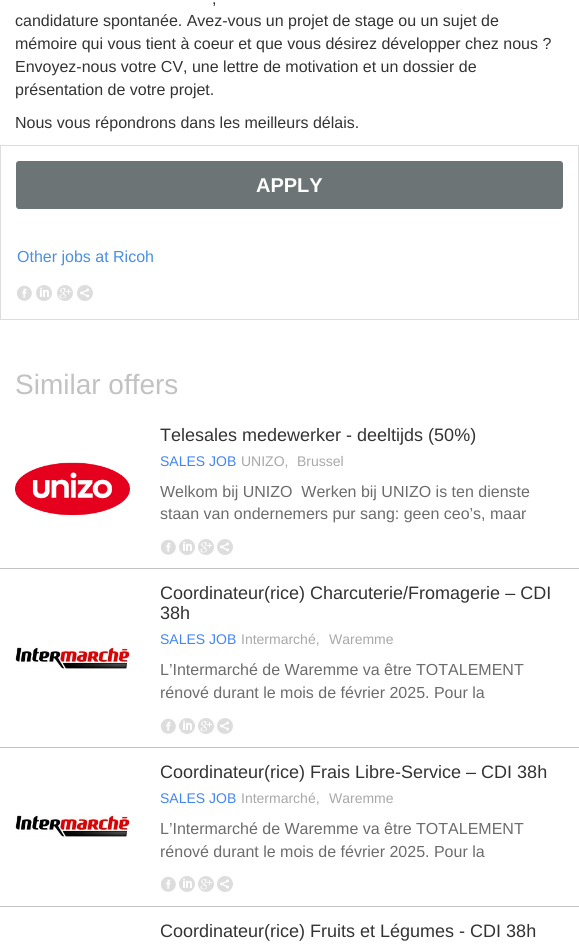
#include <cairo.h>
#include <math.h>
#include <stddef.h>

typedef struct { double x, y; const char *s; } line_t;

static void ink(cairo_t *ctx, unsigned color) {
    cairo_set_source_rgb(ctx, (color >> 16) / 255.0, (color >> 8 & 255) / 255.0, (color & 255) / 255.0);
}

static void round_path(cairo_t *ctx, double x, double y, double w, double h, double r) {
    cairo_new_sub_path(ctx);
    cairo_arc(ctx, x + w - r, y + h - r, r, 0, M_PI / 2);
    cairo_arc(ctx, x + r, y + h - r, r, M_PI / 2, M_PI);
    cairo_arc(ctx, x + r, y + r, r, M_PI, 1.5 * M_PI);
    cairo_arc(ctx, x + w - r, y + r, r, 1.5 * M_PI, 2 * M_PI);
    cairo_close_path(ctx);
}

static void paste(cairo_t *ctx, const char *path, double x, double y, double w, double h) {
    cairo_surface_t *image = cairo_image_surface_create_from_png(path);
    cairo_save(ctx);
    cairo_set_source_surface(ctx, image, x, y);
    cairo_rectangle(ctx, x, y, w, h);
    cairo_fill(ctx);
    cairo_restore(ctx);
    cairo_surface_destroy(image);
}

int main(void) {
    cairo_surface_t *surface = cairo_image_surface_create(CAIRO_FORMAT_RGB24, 579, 952);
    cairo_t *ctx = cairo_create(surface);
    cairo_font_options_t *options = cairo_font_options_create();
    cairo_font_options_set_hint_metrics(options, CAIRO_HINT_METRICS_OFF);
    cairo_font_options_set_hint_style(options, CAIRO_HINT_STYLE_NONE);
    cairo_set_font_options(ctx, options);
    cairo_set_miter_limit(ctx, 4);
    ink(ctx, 0xFFFFFF);
    cairo_paint(ctx);
    cairo_select_font_face(ctx, "Liberation Sans", CAIRO_FONT_SLANT_NORMAL, CAIRO_FONT_WEIGHT_NORMAL);
    cairo_set_font_size(ctx, 16);
    ink(ctx, 0x333333);
    {
        static const line_t items[] = {
            {212, 4, ","},
            {15, 26, "candidature spontanée. Avez-vous un projet de stage ou un sujet de"},
            {15, 49, "mémoire qui vous tient à coeur et que vous désirez développer chez nous ?"},
            {15, 72, "Envoyez-nous votre CV, une lettre de motivation et un dossier de"},
            {15, 95, "présentation de votre projet."},
            {15, 128, "Nous vous répondrons dans les meilleurs délais."},
        };
        for (size_t i = 0; i < sizeof items / sizeof *items; i++) {
            cairo_move_to(ctx, items[i].x, items[i].y);
            cairo_show_text(ctx, items[i].s);
        }
    }
    cairo_rectangle(ctx, 0.5, 145.5, 578, 174);
    ink(ctx, 0xDDDDDD);
    cairo_set_line_width(ctx, 1);
    cairo_stroke(ctx);
    ink(ctx, 0x6C7476);
    round_path(ctx, 16.5, 161.5, 546, 47, 2.5);
    cairo_fill_preserve(ctx);
    cairo_stroke(ctx);
    cairo_select_font_face(ctx, "Liberation Sans", CAIRO_FONT_SLANT_NORMAL, CAIRO_FONT_WEIGHT_BOLD);
    cairo_set_font_size(ctx, 20);
    ink(ctx, 0xFFFFFF);
    cairo_move_to(ctx, 256, 192);
    cairo_show_text(ctx, "APPLY");
    cairo_select_font_face(ctx, "Liberation Sans", CAIRO_FONT_SLANT_NORMAL, CAIRO_FONT_WEIGHT_NORMAL);
    cairo_set_font_size(ctx, 16);
    ink(ctx, 0x498FE2);
    cairo_move_to(ctx, 17, 262);
    cairo_show_text(ctx, "Other jobs at Ricoh");
    paste(ctx, "media/1.png", 17, 285, 15, 16);
    paste(ctx, "media/2.png", 36, 285, 16, 16);
    paste(ctx, "media/3.png", 57, 285, 16, 16);
    paste(ctx, "media/4.png", 77, 285, 16, 16);
    cairo_set_font_size(ctx, 28);
    ink(ctx, 0xC2C2C2);
    cairo_move_to(ctx, 15, 394);
    cairo_show_text(ctx, "Similar offers");
    cairo_rectangle(ctx, 0, 568, 579, 1);
    cairo_fill(ctx);
    paste(ctx, "media/5.png", 15, 462, 115, 53);
    cairo_set_font_size(ctx, 18);
    ink(ctx, 0x333333);
    cairo_move_to(ctx, 160, 441);
    cairo_show_text(ctx, "Telesales medewerker - deeltijds (50%)");
    cairo_set_font_size(ctx, 14);
    ink(ctx, 0x4285F4);
    cairo_move_to(ctx, 160, 466);
    cairo_show_text(ctx, "SALES JOB");
    ink(ctx, 0xA8A8A8);
    cairo_move_to(ctx, 241, 466);
    cairo_show_text(ctx, "UNIZO,");
    cairo_move_to(ctx, 297, 466);
    cairo_show_text(ctx, "Brussel");
    cairo_set_font_size(ctx, 16);
    ink(ctx, 0x6C6C6C);
    cairo_move_to(ctx, 160, 497);
    cairo_show_text(ctx, "Welkom bij UNIZO  Werken bij UNIZO is ten dienste");
    cairo_move_to(ctx, 160, 519);
    cairo_show_text(ctx, "staan van ondernemers pur sang: geen ceo’s, maar");
    paste(ctx, "media/1.png", 161, 539, 15, 16);
    paste(ctx, "media/2.png", 179, 539, 16, 16);
    paste(ctx, "media/3.png", 198, 539, 16, 16);
    paste(ctx, "media/4.png", 217, 539, 16, 16);
    ink(ctx, 0xC2C2C2);
    cairo_rectangle(ctx, 0, 747, 579, 1);
    cairo_fill(ctx);
    paste(ctx, "media/6.png", 15, 645, 115, 25);
    cairo_set_font_size(ctx, 18);
    ink(ctx, 0x333333);
    cairo_move_to(ctx, 160, 599);
    cairo_show_text(ctx, "Coordinateur(rice) Charcuterie/Fromagerie – CDI");
    cairo_move_to(ctx, 160, 619);
    cairo_show_text(ctx, "38h");
    cairo_set_font_size(ctx, 14);
    ink(ctx, 0x4285F4);
    cairo_move_to(ctx, 160, 644);
    cairo_show_text(ctx, "SALES JOB");
    ink(ctx, 0xA8A8A8);
    cairo_move_to(ctx, 241, 644);
    cairo_show_text(ctx, "Intermarché,");
    cairo_move_to(ctx, 329, 644);
    cairo_show_text(ctx, "Waremme");
    cairo_set_font_size(ctx, 16);
    ink(ctx, 0x6C6C6C);
    cairo_move_to(ctx, 160, 675);
    cairo_show_text(ctx, "L’Intermarché de Waremme va être TOTALEMENT");
    cairo_move_to(ctx, 160, 698);
    cairo_show_text(ctx, "rénové durant le mois de février 2025. Pour la");
    paste(ctx, "media/1.png", 161, 718, 15, 16);
    paste(ctx, "media/2.png", 179, 718, 16, 16);
    paste(ctx, "media/3.png", 198, 718, 16, 16);
    paste(ctx, "media/4.png", 217, 718, 16, 16);
    ink(ctx, 0xC2C2C2);
    cairo_rectangle(ctx, 0, 906, 579, 1);
    cairo_fill(ctx);
    paste(ctx, "media/7.png", 15, 813, 115, 25);
    cairo_set_font_size(ctx, 18);
    ink(ctx, 0x333333);
    cairo_move_to(ctx, 160, 778);
    cairo_show_text(ctx, "Coordinateur(rice) Frais Libre-Service – CDI 38h");
    cairo_set_font_size(ctx, 14);
    ink(ctx, 0x4285F4);
    cairo_move_to(ctx, 160, 803);
    cairo_show_text(ctx, "SALES JOB");
    ink(ctx, 0xA8A8A8);
    cairo_move_to(ctx, 241, 803);
    cairo_show_text(ctx, "Intermarché,");
    cairo_move_to(ctx, 329, 803);
    cairo_show_text(ctx, "Waremme");
    cairo_set_font_size(ctx, 16);
    ink(ctx, 0x6C6C6C);
    cairo_move_to(ctx, 160, 834);
    cairo_show_text(ctx, "L’Intermarché de Waremme va être TOTALEMENT");
    cairo_move_to(ctx, 160, 857);
    cairo_show_text(ctx, "rénové durant le mois de février 2025. Pour la");
    paste(ctx, "media/1.png", 161, 876, 15, 16);
    paste(ctx, "media/2.png", 179, 876, 16, 16);
    paste(ctx, "media/3.png", 198, 876, 16, 16);
    paste(ctx, "media/4.png", 217, 876, 16, 16);
    cairo_set_font_size(ctx, 18);
    ink(ctx, 0x333333);
    cairo_move_to(ctx, 160, 937);
    cairo_show_text(ctx, "Coordinateur(rice) Fruits et Légumes - CDI 38h");
    cairo_surface_write_to_png(surface, "image.png");
    cairo_font_options_destroy(options);
    cairo_destroy(ctx);
    cairo_surface_destroy(surface);
    return 0;
}
